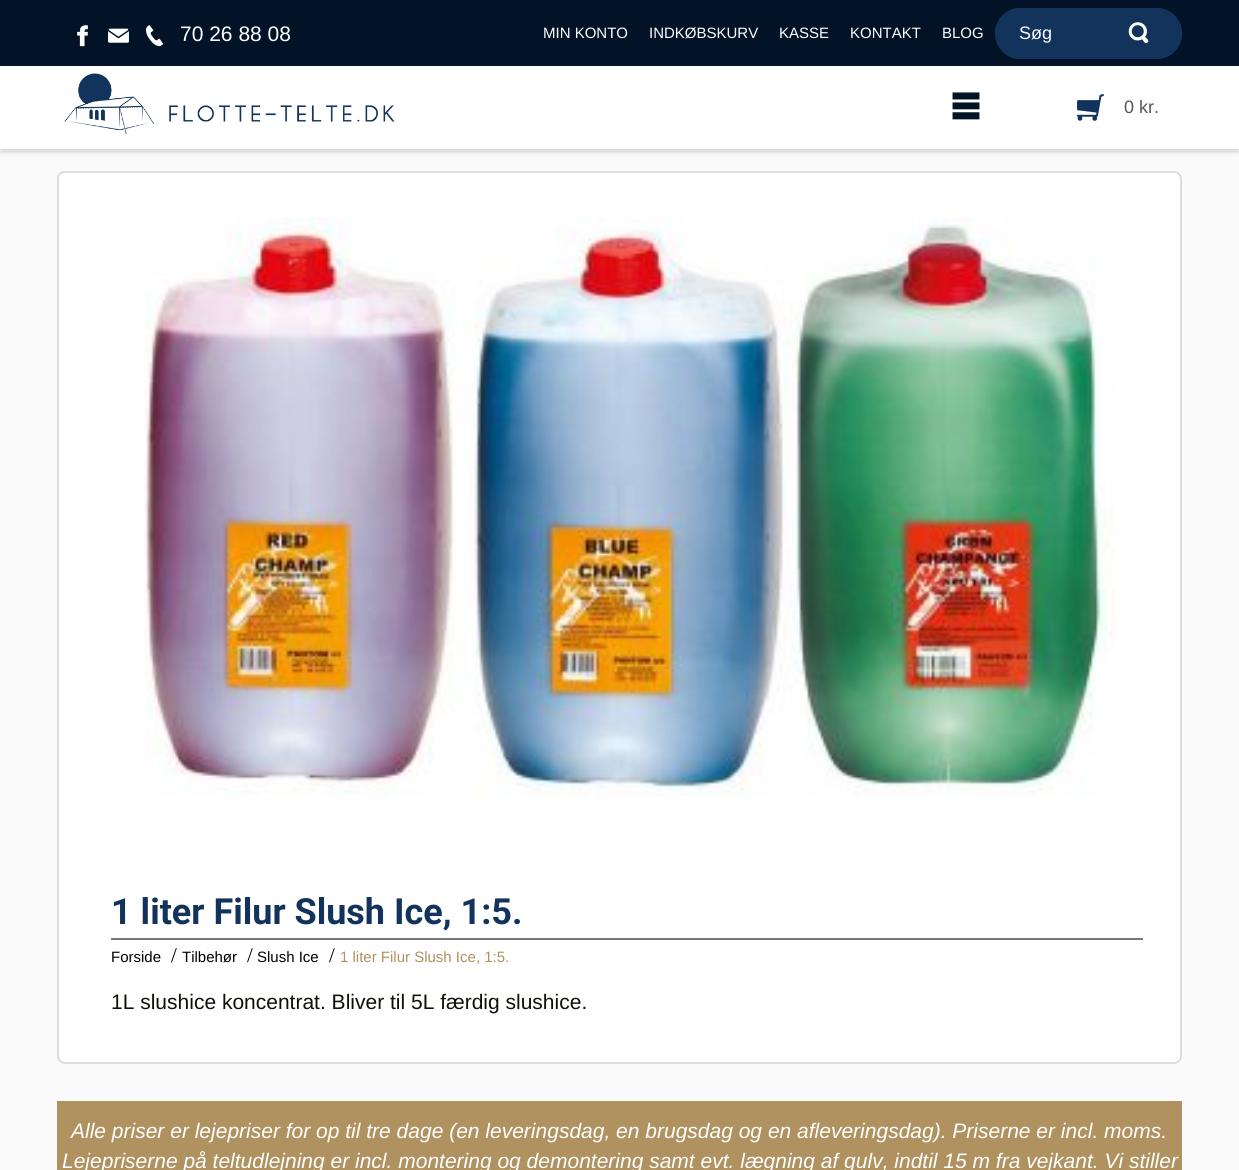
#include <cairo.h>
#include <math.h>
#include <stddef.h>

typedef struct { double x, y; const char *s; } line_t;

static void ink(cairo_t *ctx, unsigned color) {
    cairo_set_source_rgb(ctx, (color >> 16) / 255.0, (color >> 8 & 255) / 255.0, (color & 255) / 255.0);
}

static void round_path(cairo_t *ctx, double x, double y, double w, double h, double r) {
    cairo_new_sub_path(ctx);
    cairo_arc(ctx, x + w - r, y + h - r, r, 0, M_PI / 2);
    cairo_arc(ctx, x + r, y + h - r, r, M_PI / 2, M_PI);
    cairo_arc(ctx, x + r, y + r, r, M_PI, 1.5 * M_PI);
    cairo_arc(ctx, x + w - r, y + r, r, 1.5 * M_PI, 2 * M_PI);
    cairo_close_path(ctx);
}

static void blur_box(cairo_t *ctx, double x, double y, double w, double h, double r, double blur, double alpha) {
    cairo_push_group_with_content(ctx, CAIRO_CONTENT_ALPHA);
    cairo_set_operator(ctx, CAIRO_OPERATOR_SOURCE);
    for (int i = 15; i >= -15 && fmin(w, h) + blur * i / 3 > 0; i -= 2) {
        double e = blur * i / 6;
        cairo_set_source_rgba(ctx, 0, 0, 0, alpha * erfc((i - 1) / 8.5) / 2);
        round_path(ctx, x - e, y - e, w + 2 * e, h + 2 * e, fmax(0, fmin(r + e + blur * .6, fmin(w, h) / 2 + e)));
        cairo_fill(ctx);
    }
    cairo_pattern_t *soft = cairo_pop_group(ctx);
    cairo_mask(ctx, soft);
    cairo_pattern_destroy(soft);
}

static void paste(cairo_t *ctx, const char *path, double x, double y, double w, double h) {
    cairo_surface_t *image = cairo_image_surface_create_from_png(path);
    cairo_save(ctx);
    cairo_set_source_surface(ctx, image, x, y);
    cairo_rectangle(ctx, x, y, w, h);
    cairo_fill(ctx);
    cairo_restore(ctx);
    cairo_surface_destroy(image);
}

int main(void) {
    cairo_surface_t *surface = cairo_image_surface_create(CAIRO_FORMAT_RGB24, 1239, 1170);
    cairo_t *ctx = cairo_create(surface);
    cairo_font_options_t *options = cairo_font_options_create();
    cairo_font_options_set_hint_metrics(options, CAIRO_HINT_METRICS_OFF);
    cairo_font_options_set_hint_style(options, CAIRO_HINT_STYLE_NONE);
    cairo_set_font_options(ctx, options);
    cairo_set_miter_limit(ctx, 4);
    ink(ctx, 0xFAFAFA);
    cairo_paint(ctx);
    ink(ctx, 0x021327);
    cairo_rectangle(ctx, 0, 0, 1239, 66);
    cairo_fill(ctx);
    paste(ctx, "media/1.png", 77, 25, 11, 22);
    paste(ctx, "media/2.png", 108, 28, 21, 15);
    paste(ctx, "media/3.png", 145, 25, 19, 22);
    cairo_select_font_face(ctx, "Liberation Sans", CAIRO_FONT_SLANT_NORMAL, CAIRO_FONT_WEIGHT_NORMAL);
    cairo_set_font_size(ctx, 21);
    ink(ctx, 0xFFFFFF);
    cairo_move_to(ctx, 180, 41);
    cairo_show_text(ctx, "70 26 88 08");
    cairo_set_font_size(ctx, 15);
    {
        static const line_t items[] = {
            {543, 38, "MIN KONTO"},
            {649, 38, "INDKØBSKURV"},
            {779, 38, "KASSE"},
            {850, 38, "KONTAKT"},
            {942, 38, "BLOG"},
        };
        for (size_t i = 0; i < sizeof items / sizeof *items; i++) {
            cairo_move_to(ctx, items[i].x, items[i].y);
            cairo_show_text(ctx, items[i].s);
        }
    }
    ink(ctx, 0x12335B);
    round_path(ctx, 995, 8, 187, 51, 25.5);
    cairo_fill(ctx);
    ink(ctx, 0x112F54);
    cairo_new_path(ctx);
    cairo_move_to(ctx, 1020, 10);
    cairo_line_to(ctx, 1156, 10);
    cairo_curve_to(ctx, 1170, 10, 1180, 21, 1180, 34);
    cairo_curve_to(ctx, 1180, 39, 1179, 43, 1177, 46);
    cairo_curve_to(ctx, 1179, 43, 1181, 38, 1181, 33);
    cairo_curve_to(ctx, 1181, 20, 1170, 9, 1157, 9);
    cairo_line_to(ctx, 1020, 9);
    cairo_curve_to(ctx, 1007, 9, 996, 20, 996, 33);
    cairo_line_to(ctx, 996, 34);
    cairo_curve_to(ctx, 996, 21, 1007, 10, 1020, 10);
    cairo_close_path(ctx);
    cairo_fill(ctx);
    round_path(ctx, 996, 9, 185, 49, 24.5);
    ink(ctx, 0x12335B);
    cairo_stroke(ctx);
    cairo_set_font_size(ctx, 18);
    ink(ctx, 0xFFFFFF);
    cairo_move_to(ctx, 1019, 39);
    cairo_show_text(ctx, "Søg");
    paste(ctx, "media/4.png", 1128, 22, 21, 22);
    ink(ctx, 0x000000);
    blur_box(ctx, 0, 71, 1239, 82, 0, 1.5, 0.12);
    ink(ctx, 0xFFFFFF);
    cairo_rectangle(ctx, 0, 66, 1239, 83);
    cairo_fill(ctx);
    paste(ctx, "media/5.png", 64, 73, 331, 61);
    paste(ctx, "media/6.png", 952, 92, 28, 28);
    paste(ctx, "media/7.png", 1077, 94, 27, 27);
    ink(ctx, 0x555555);
    cairo_move_to(ctx, 1124, 113);
    cairo_show_text(ctx, "0 kr.");
    ink(ctx, 0xFFFFFF);
    round_path(ctx, 58, 172, 1123, 891, 7);
    cairo_fill_preserve(ctx);
    ink(ctx, 0xDDDDDD);
    cairo_stroke(ctx);
    paste(ctx, "media/8.png", 143, 217, 972, 580);
    ink(ctx, 0x777777);
    cairo_rectangle(ctx, 111, 938, 1032, 2);
    cairo_fill(ctx);
    cairo_select_font_face(ctx, "Roboto", CAIRO_FONT_SLANT_NORMAL, CAIRO_FONT_WEIGHT_BOLD);
    cairo_set_font_size(ctx, 36);
    ink(ctx, 0x12335B);
    cairo_move_to(ctx, 111, 924);
    cairo_show_text(ctx, "1 liter Filur Slush Ice, 1:5.");
    cairo_select_font_face(ctx, "Liberation Sans", CAIRO_FONT_SLANT_NORMAL, CAIRO_FONT_WEIGHT_NORMAL);
    cairo_set_font_size(ctx, 15);
    ink(ctx, 0x000000);
    cairo_move_to(ctx, 111, 962);
    cairo_show_text(ctx, "Forside");
    cairo_select_font_face(ctx, "Liberation Serif", CAIRO_FONT_SLANT_NORMAL, CAIRO_FONT_WEIGHT_NORMAL);
    cairo_set_font_size(ctx, 21);
    cairo_move_to(ctx, 171, 962);
    cairo_show_text(ctx, "/");
    cairo_select_font_face(ctx, "Liberation Sans", CAIRO_FONT_SLANT_NORMAL, CAIRO_FONT_WEIGHT_NORMAL);
    cairo_set_font_size(ctx, 15);
    cairo_move_to(ctx, 182, 962);
    cairo_show_text(ctx, "Tilbehør");
    cairo_select_font_face(ctx, "Liberation Serif", CAIRO_FONT_SLANT_NORMAL, CAIRO_FONT_WEIGHT_NORMAL);
    cairo_set_font_size(ctx, 21);
    cairo_move_to(ctx, 247, 962);
    cairo_show_text(ctx, "/");
    cairo_select_font_face(ctx, "Liberation Sans", CAIRO_FONT_SLANT_NORMAL, CAIRO_FONT_WEIGHT_NORMAL);
    cairo_set_font_size(ctx, 15);
    cairo_move_to(ctx, 257, 962);
    cairo_show_text(ctx, "Slush Ice");
    cairo_select_font_face(ctx, "Liberation Serif", CAIRO_FONT_SLANT_NORMAL, CAIRO_FONT_WEIGHT_NORMAL);
    cairo_set_font_size(ctx, 21);
    cairo_move_to(ctx, 329, 962);
    cairo_show_text(ctx, "/");
    cairo_select_font_face(ctx, "Liberation Sans", CAIRO_FONT_SLANT_NORMAL, CAIRO_FONT_WEIGHT_NORMAL);
    cairo_set_font_size(ctx, 15);
    ink(ctx, 0xB09160);
    cairo_move_to(ctx, 340, 962);
    cairo_show_text(ctx, "1 liter Filur Slush Ice, 1:5.");
    cairo_set_font_size(ctx, 21);
    ink(ctx, 0x120F09);
    cairo_move_to(ctx, 111, 1009);
    cairo_show_text(ctx, "1L slushice koncentrat. Bliver til 5L færdig slushice.");
    ink(ctx, 0xB09160);
    cairo_rectangle(ctx, 57, 1101, 1125, 69);
    cairo_fill(ctx);
    cairo_select_font_face(ctx, "Liberation Sans", CAIRO_FONT_SLANT_ITALIC, CAIRO_FONT_WEIGHT_NORMAL);
    ink(ctx, 0xFFFFFF);
    cairo_move_to(ctx, 71, 1138);
    cairo_show_text(ctx, "Alle priser er lejepriser for op til tre dage (en leveringsdag, en brugsdag og en afleveringsdag). Priserne er incl. moms.");
    cairo_move_to(ctx, 62, 1168);
    cairo_show_text(ctx, "Lejepriserne på teltudlejning er incl. montering og demontering samt evt. lægning af gulv, indtil 15 m fra vejkant. Vi stiller");
    cairo_surface_write_to_png(surface, "image.png");
    cairo_font_options_destroy(options);
    cairo_destroy(ctx);
    cairo_surface_destroy(surface);
    return 0;
}
